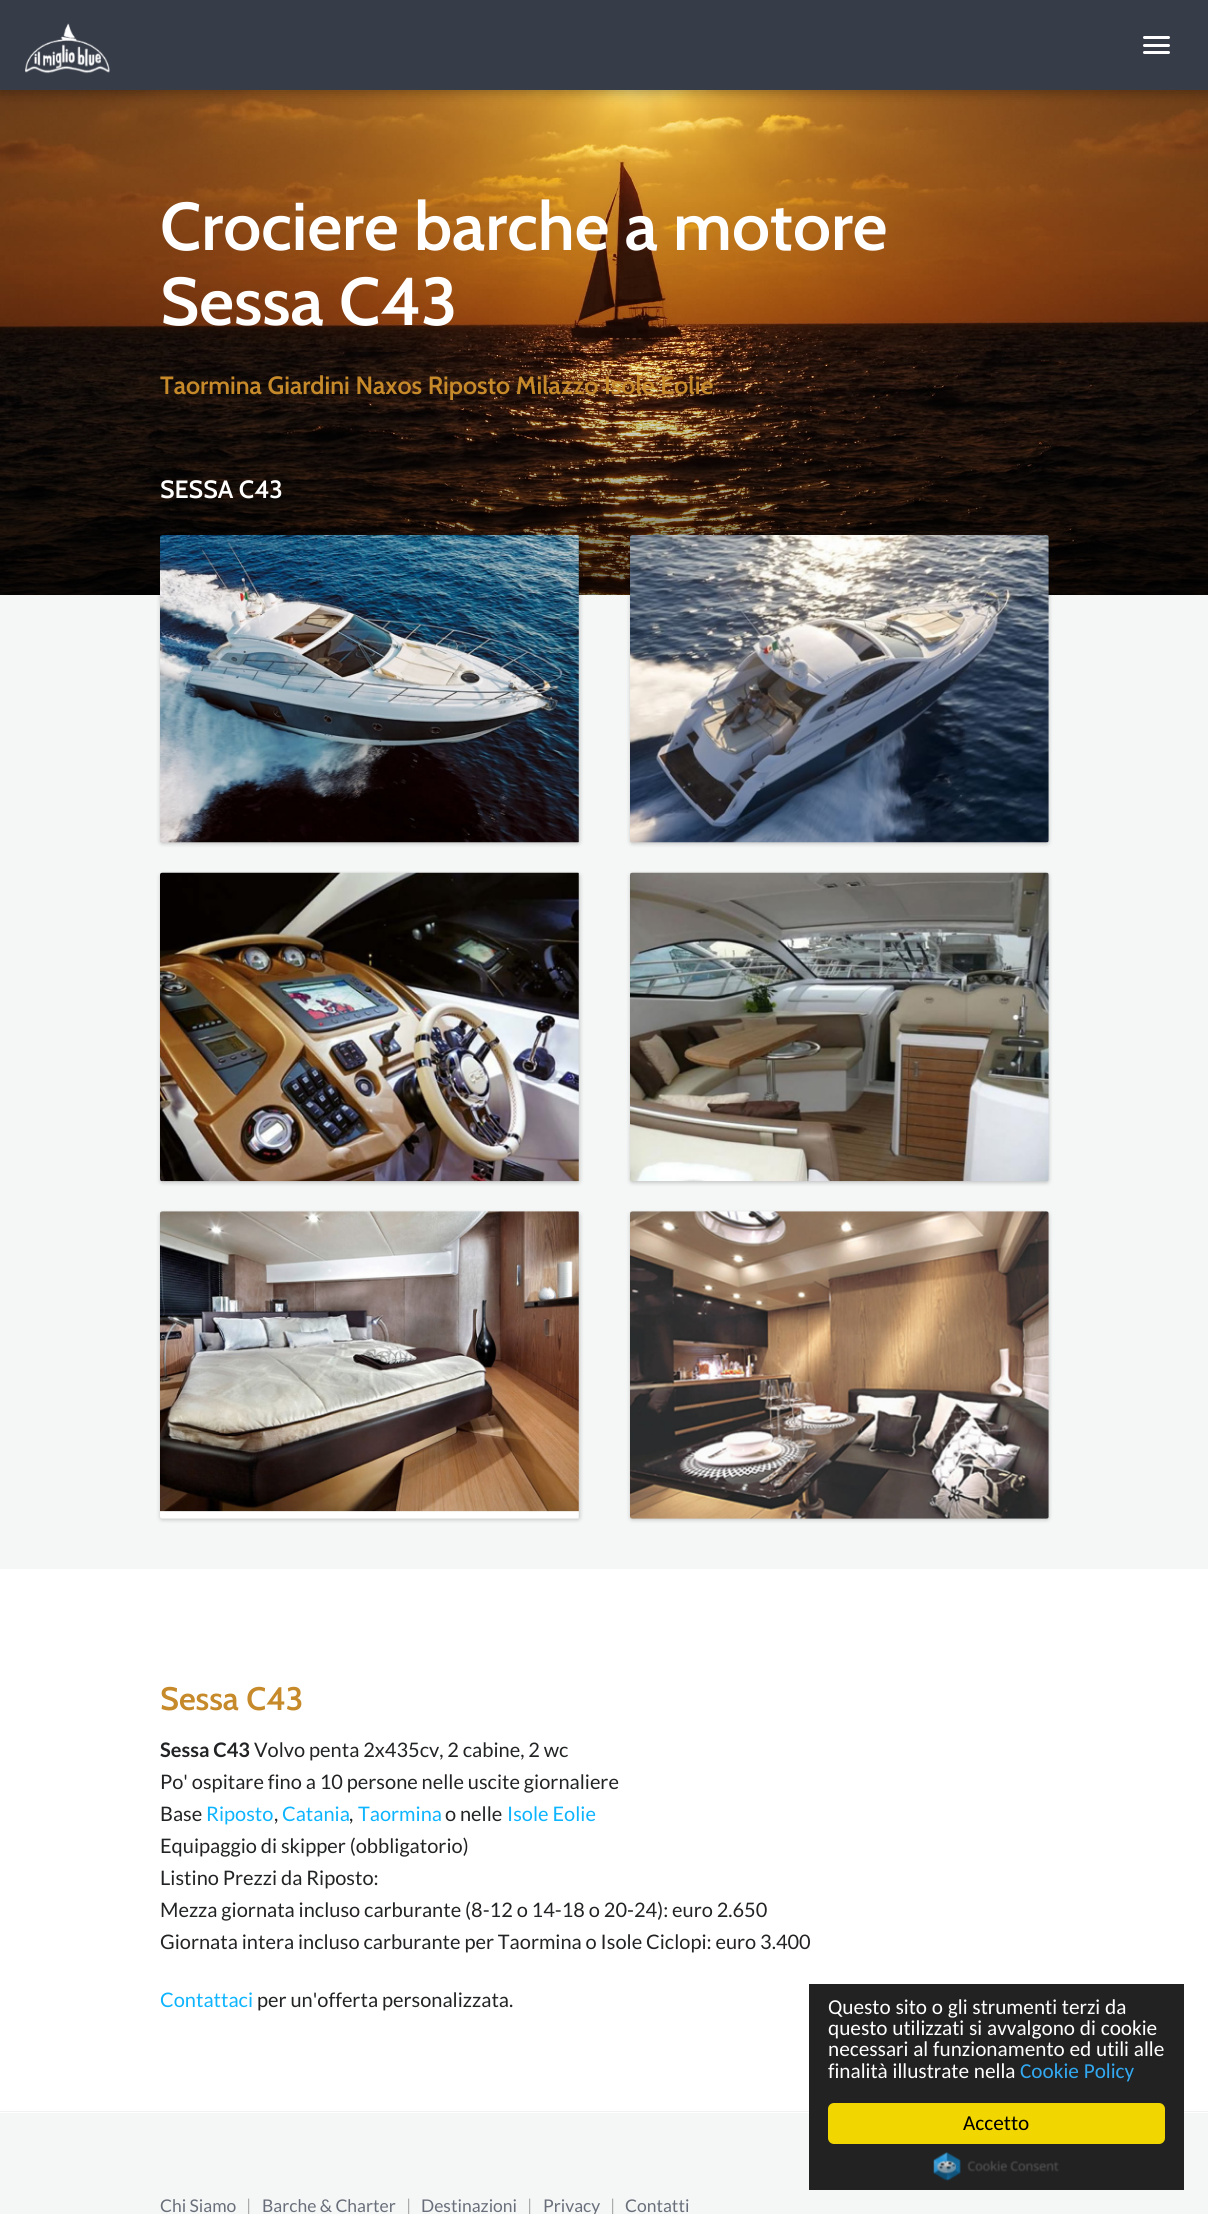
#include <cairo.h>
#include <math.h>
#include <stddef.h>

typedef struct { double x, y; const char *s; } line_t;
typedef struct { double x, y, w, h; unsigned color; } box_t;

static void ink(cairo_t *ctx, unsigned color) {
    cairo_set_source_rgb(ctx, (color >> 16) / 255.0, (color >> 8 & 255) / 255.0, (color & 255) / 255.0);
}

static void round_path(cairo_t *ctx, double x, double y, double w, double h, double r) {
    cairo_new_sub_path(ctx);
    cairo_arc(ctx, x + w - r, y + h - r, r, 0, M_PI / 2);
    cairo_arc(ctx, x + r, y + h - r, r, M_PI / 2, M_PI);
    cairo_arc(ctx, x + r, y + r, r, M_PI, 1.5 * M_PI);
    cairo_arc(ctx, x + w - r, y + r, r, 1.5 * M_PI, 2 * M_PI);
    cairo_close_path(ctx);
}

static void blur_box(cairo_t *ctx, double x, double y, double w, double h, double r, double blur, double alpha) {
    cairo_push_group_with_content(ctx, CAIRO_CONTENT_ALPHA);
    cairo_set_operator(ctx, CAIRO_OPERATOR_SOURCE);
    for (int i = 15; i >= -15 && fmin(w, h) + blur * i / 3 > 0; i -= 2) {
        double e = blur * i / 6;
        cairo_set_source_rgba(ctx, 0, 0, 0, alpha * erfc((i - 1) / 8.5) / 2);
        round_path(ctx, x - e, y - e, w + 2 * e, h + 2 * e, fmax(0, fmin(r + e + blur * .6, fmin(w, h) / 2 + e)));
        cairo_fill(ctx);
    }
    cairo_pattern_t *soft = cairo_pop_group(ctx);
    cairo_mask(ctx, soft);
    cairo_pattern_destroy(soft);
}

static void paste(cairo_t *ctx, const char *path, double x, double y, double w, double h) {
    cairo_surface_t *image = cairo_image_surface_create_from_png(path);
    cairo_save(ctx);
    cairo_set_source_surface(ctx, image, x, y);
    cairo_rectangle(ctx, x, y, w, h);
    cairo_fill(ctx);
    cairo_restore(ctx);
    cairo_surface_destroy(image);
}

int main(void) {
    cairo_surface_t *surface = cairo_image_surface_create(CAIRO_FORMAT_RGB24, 1208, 2214);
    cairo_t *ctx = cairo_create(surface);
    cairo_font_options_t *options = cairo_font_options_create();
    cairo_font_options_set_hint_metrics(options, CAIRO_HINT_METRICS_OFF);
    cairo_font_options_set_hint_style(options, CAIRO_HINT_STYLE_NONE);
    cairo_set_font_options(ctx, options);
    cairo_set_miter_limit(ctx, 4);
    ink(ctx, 0xFFFFFF);
    cairo_paint(ctx);
    paste(ctx, "media/2.png", 0, 90, 1208, 505);
    ink(ctx, 0x000000);
    blur_box(ctx, 0, 3, 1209, 90, 0, 6, 0.3);
    ink(ctx, 0x363C48);
    cairo_rectangle(ctx, 0, 0, 1208, 90);
    cairo_fill(ctx);
    paste(ctx, "media/1.png", 25, 23, 85, 51);
    ink(ctx, 0xFFFFFF);
    round_path(ctx, 1143, 36, 27, 3, 1.5);
    cairo_fill(ctx);
    round_path(ctx, 1143, 44, 27, 3, 1.5);
    cairo_fill(ctx);
    round_path(ctx, 1143, 51, 27, 3, 1.5);
    cairo_fill(ctx);
    cairo_select_font_face(ctx, "Cabin SemiBold", CAIRO_FONT_SLANT_NORMAL, CAIRO_FONT_WEIGHT_NORMAL);
    cairo_set_font_size(ctx, 67.5);
    cairo_move_to(ctx, 160, 250);
    cairo_show_text(ctx, "Crociere barche a motore");
    cairo_move_to(ctx, 160, 325);
    cairo_show_text(ctx, "Sessa C43");
    cairo_set_font_size(ctx, 25);
    ink(ctx, 0xC68A2A);
    cairo_move_to(ctx, 160, 394);
    cairo_show_text(ctx, "Taormina Giardini Naxos Riposto Milazzo Isole Eolie");
    ink(ctx, 0xF5F6F6);
    cairo_rectangle(ctx, 0, 595, 1208, 974);
    cairo_fill(ctx);
    ink(ctx, 0xFFFFFF);
    cairo_move_to(ctx, 160, 498);
    cairo_show_text(ctx, "SESSA C43");
    ink(ctx, 0x000000);
    blur_box(ctx, 160, 536, 420, 308, 2.5, 2, 0.2);
    paste(ctx, "media/3.png", 160, 535, 419, 308);
    blur_box(ctx, 630, 536, 419, 308, 2.5, 2, 0.2);
    paste(ctx, "media/4.png", 630, 535, 419, 308);
    blur_box(ctx, 160, 874, 420, 309, 2.5, 2, 0.2);
    paste(ctx, "media/5.png", 160, 872, 419, 310);
    blur_box(ctx, 630, 874, 419, 309, 2.5, 2, 0.2);
    paste(ctx, "media/6.png", 630, 872, 419, 310);
    blur_box(ctx, 160, 1213, 420, 307, 2.5, 2, 0.2);
    paste(ctx, "media/7.png", 160, 1211, 419, 308);
    blur_box(ctx, 630, 1213, 419, 307, 2.5, 2, 0.2);
    paste(ctx, "media/8.png", 630, 1211, 419, 308);
    cairo_set_font_size(ctx, 32.5);
    ink(ctx, 0xC68A2A);
    cairo_move_to(ctx, 160, 1710);
    cairo_show_text(ctx, "Sessa C43");
    cairo_select_font_face(ctx, "Lato", CAIRO_FONT_SLANT_NORMAL, CAIRO_FONT_WEIGHT_BOLD);
    cairo_set_font_size(ctx, 20);
    ink(ctx, 0x222324);
    cairo_move_to(ctx, 160, 1757);
    cairo_show_text(ctx, "Sessa C43");
    cairo_select_font_face(ctx, "Lato", CAIRO_FONT_SLANT_NORMAL, CAIRO_FONT_WEIGHT_NORMAL);
    {
        static const line_t items[] = {
            {254, 1757, "Volvo penta 2x435cv, 2 cabine, 2 wc"},
            {160, 1789, "Po' ospitare fino a 10 persone nelle uscite giornaliere"},
            {160, 1821, "Base"},
        };
        for (size_t i = 0; i < sizeof items / sizeof *items; i++) {
            cairo_move_to(ctx, items[i].x, items[i].y);
            cairo_show_text(ctx, items[i].s);
        }
    }
    ink(ctx, 0x0DB4FF);
    cairo_move_to(ctx, 206, 1821);
    cairo_show_text(ctx, "Riposto");
    ink(ctx, 0x222324);
    cairo_move_to(ctx, 274, 1821);
    cairo_show_text(ctx, ",");
    ink(ctx, 0x0DB4FF);
    cairo_move_to(ctx, 282, 1821);
    cairo_show_text(ctx, "Catania");
    ink(ctx, 0x222324);
    cairo_move_to(ctx, 349, 1821);
    cairo_show_text(ctx, ",");
    ink(ctx, 0x0DB4FF);
    cairo_move_to(ctx, 358, 1821);
    cairo_show_text(ctx, "Taormina");
    ink(ctx, 0x222324);
    cairo_move_to(ctx, 445, 1821);
    cairo_show_text(ctx, "o nelle");
    ink(ctx, 0x0DB4FF);
    cairo_move_to(ctx, 507, 1821);
    cairo_show_text(ctx, "Isole Eolie");
    ink(ctx, 0x222324);
    {
        static const line_t items[] = {
            {160, 1853, "Equipaggio di skipper (obbligatorio)"},
            {160, 1885, "Listino Prezzi da Riposto:"},
            {160, 1917, "Mezza giornata incluso carburante (8-12 o 14-18 o 20-24): euro 2.650"},
            {160, 1949, "Giornata intera incluso carburante per Taormina o Isole Ciclopi: euro 3.400"},
        };
        for (size_t i = 0; i < sizeof items / sizeof *items; i++) {
            cairo_move_to(ctx, items[i].x, items[i].y);
            cairo_show_text(ctx, items[i].s);
        }
    }
    ink(ctx, 0x0DB4FF);
    cairo_move_to(ctx, 160, 2007);
    cairo_show_text(ctx, "Contattaci");
    ink(ctx, 0x222324);
    cairo_move_to(ctx, 257, 2007);
    cairo_show_text(ctx, "per un'offerta personalizzata.");
    {
        static const box_t items[] = {
            {0, 2111, 1208, 1, 0xF1F1F1},
            {0, 2113, 1208, 101, 0xF5F6F6},
            {809, 1984, 375, 206, 0x222222},
        };
        for (size_t i = 0; i < sizeof items / sizeof *items; i++) {
            ink(ctx, items[i].color);
            cairo_rectangle(ctx, items[i].x, items[i].y, items[i].w, items[i].h);
            cairo_fill(ctx);
        }
    }
    cairo_select_font_face(ctx, "Carlito", CAIRO_FONT_SLANT_NORMAL, CAIRO_FONT_WEIGHT_NORMAL);
    cairo_set_font_size(ctx, 21.25);
    ink(ctx, 0xFFFFFF);
    {
        static const line_t items[] = {
            {828, 2014, "Questo sito o gli strumenti terzi da"},
            {828, 2035, "questo utilizzati si avvalgono di cookie"},
            {828, 2056, "necessari al funzionamento ed utili alle"},
            {828, 2078, "finalità illustrate nella"},
        };
        for (size_t i = 0; i < sizeof items / sizeof *items; i++) {
            cairo_move_to(ctx, items[i].x, items[i].y);
            cairo_show_text(ctx, items[i].s);
        }
    }
    ink(ctx, 0x31A8F0);
    cairo_move_to(ctx, 1020, 2078);
    cairo_show_text(ctx, "Cookie Policy");
    ink(ctx, 0xF1D600);
    round_path(ctx, 828, 2103, 337, 41, 6);
    cairo_fill(ctx);
    ink(ctx, 0x000000);
    cairo_move_to(ctx, 963, 2130);
    cairo_show_text(ctx, "Accetto");
    paste(ctx, "media/9.png", 933, 2152, 126, 29);
    cairo_select_font_face(ctx, "Lato", CAIRO_FONT_SLANT_NORMAL, CAIRO_FONT_WEIGHT_NORMAL);
    cairo_set_font_size(ctx, 17.5);
    ink(ctx, 0x696F7A);
    cairo_move_to(ctx, 160, 2212);
    cairo_show_text(ctx, "Chi Siamo");
    ink(ctx, 0xAAAAAA);
    cairo_move_to(ctx, 246, 2212);
    cairo_show_text(ctx, "|");
    ink(ctx, 0x696F7A);
    cairo_move_to(ctx, 262, 2212);
    cairo_show_text(ctx, "Barche & Charter");
    ink(ctx, 0xAAAAAA);
    cairo_move_to(ctx, 406, 2212);
    cairo_show_text(ctx, "|");
    ink(ctx, 0x696F7A);
    cairo_move_to(ctx, 421, 2212);
    cairo_show_text(ctx, "Destinazioni");
    ink(ctx, 0xAAAAAA);
    cairo_move_to(ctx, 527, 2212);
    cairo_show_text(ctx, "|");
    ink(ctx, 0x696F7A);
    cairo_move_to(ctx, 543, 2212);
    cairo_show_text(ctx, "Privacy");
    ink(ctx, 0xAAAAAA);
    cairo_move_to(ctx, 610, 2212);
    cairo_show_text(ctx, "|");
    ink(ctx, 0x696F7A);
    cairo_move_to(ctx, 625, 2212);
    cairo_show_text(ctx, "Contatti");
    cairo_surface_write_to_png(surface, "image.png");
    cairo_font_options_destroy(options);
    cairo_destroy(ctx);
    cairo_surface_destroy(surface);
    return 0;
}
